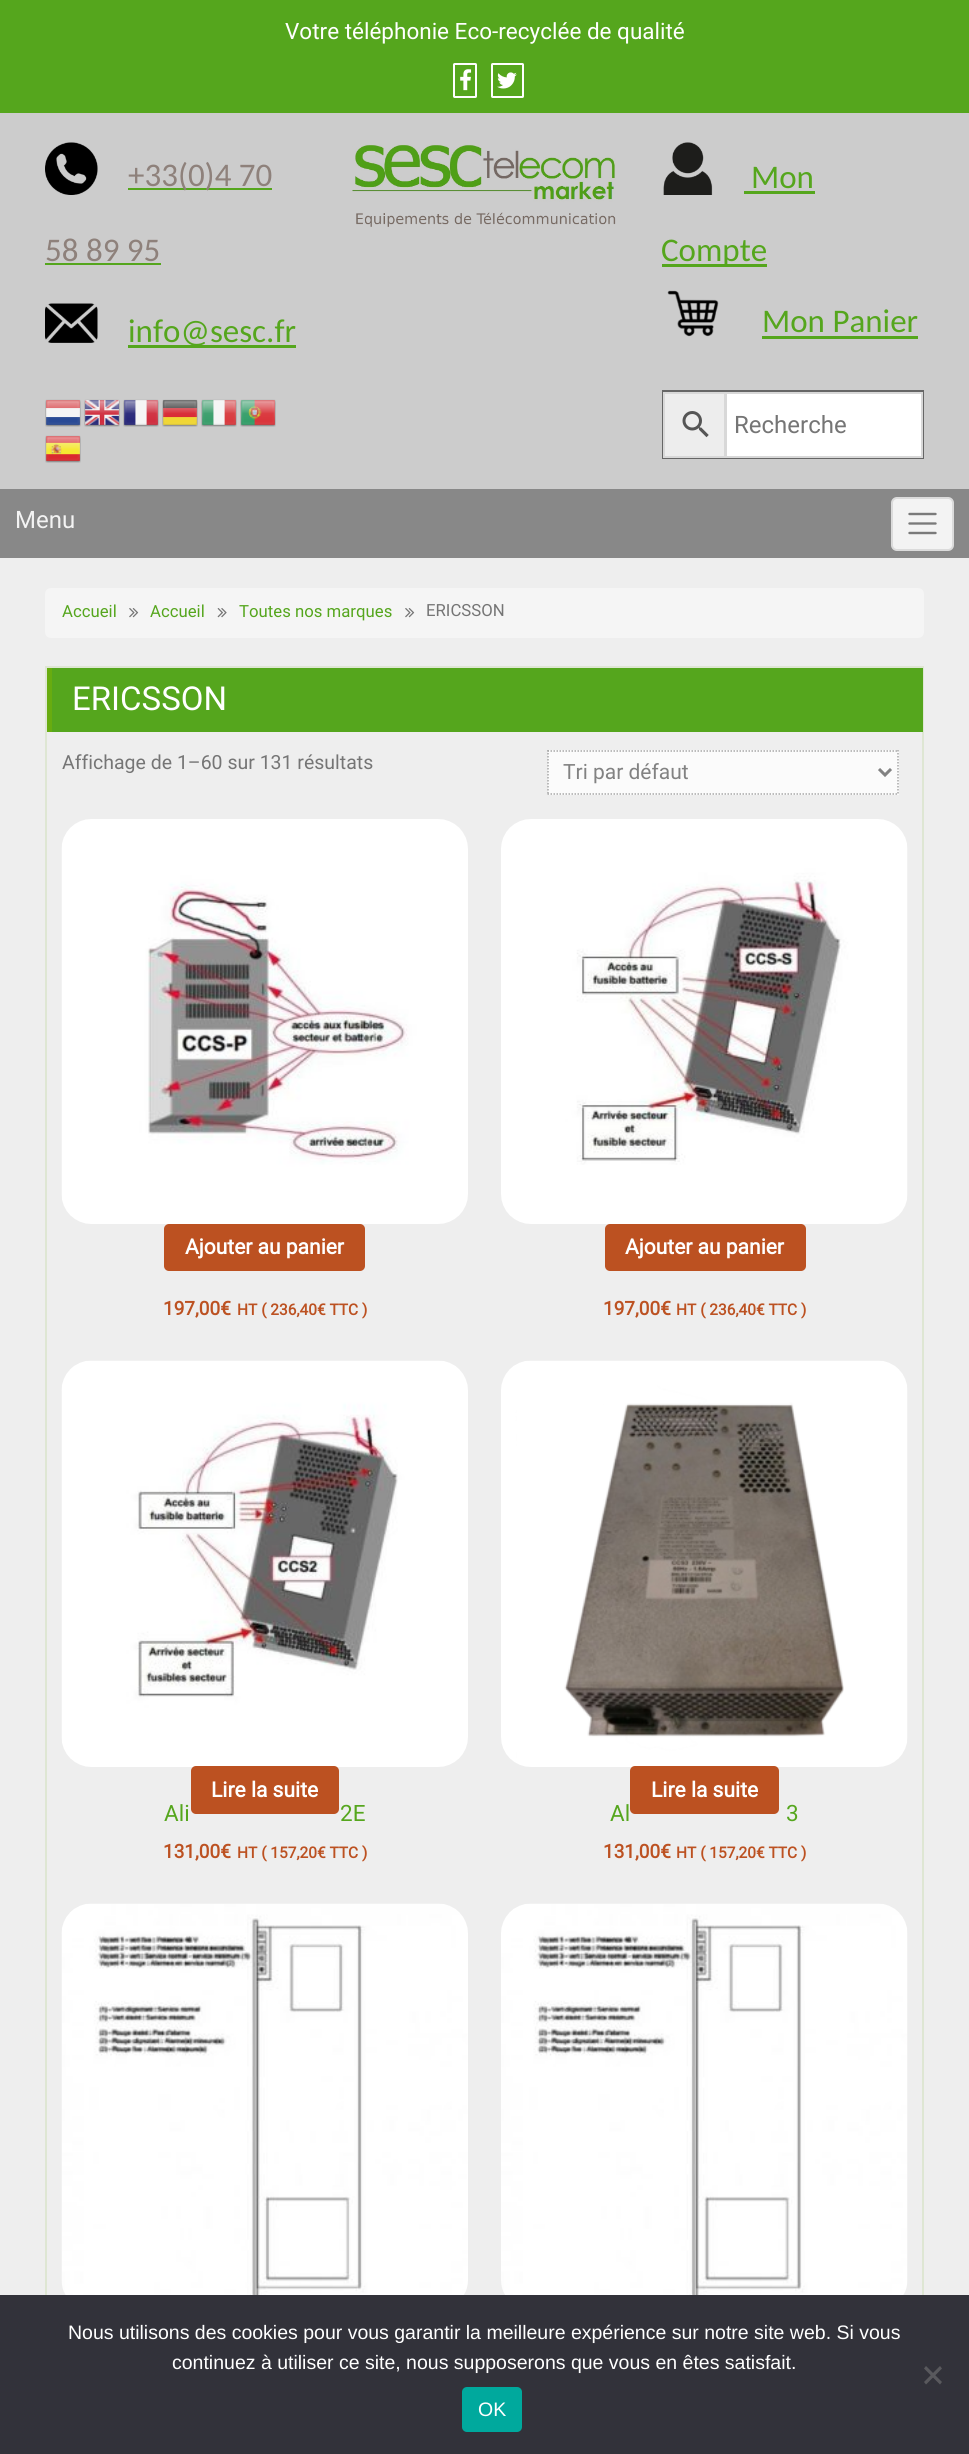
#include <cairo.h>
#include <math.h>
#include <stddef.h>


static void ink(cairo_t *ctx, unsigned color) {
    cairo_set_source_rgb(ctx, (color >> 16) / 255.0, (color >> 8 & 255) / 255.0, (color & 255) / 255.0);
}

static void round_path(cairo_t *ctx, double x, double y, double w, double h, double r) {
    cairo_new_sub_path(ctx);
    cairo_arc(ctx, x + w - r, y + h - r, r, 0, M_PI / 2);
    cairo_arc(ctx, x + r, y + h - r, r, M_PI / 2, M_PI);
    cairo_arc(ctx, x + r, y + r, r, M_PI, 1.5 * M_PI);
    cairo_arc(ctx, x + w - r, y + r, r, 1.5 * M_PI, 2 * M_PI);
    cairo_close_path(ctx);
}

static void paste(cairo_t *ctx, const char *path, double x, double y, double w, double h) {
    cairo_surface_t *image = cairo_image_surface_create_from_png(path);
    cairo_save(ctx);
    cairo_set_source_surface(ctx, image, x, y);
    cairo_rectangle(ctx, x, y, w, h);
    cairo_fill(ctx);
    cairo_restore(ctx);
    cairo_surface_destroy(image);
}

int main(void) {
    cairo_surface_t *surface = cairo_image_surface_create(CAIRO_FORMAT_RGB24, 969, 2454);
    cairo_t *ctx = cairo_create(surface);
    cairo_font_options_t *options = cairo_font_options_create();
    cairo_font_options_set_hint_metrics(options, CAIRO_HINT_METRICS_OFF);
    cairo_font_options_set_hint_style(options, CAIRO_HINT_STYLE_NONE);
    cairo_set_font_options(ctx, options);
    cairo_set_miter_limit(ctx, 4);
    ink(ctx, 0xEEEEEE);
    cairo_paint(ctx);
    ink(ctx, 0x55A61D);
    cairo_rectangle(ctx, 0, 0, 969, 113);
    cairo_fill(ctx);
    cairo_select_font_face(ctx, "Roboto", CAIRO_FONT_SLANT_NORMAL, CAIRO_FONT_WEIGHT_NORMAL);
    cairo_set_font_size(ctx, 22.5);
    ink(ctx, 0xFFFFFF);
    cairo_move_to(ctx, 285, 39);
    cairo_show_text(ctx, "Votre téléphonie Eco-recyclée de qualité");
    round_path(ctx, 454, 64, 22, 33, 0.5);
    cairo_stroke(ctx);
    paste(ctx, "media/1.png", 460, 69, 12, 22);
    round_path(ctx, 492, 64, 31, 33, 0.5);
    cairo_stroke(ctx);
    paste(ctx, "media/2.png", 497, 72, 20, 17);
    ink(ctx, 0xCCCCCC);
    cairo_rectangle(ctx, 0, 113, 969, 376);
    cairo_fill(ctx);
    paste(ctx, "media/3.png", 45, 142, 53, 53);
    ink(ctx, 0x55A61D);
    cairo_rectangle(ctx, 128, 188, 144, 2);
    cairo_fill(ctx);
    cairo_select_font_face(ctx, "Carlito", CAIRO_FONT_SLANT_NORMAL, CAIRO_FONT_WEIGHT_NORMAL);
    cairo_set_font_size(ctx, 33);
    ink(ctx, 0x8E817B);
    cairo_move_to(ctx, 128, 186);
    cairo_show_text(ctx, "+33(0)4 70");
    cairo_move_to(ctx, 45, 261);
    cairo_show_text(ctx, "58 89 95");
    ink(ctx, 0x55A61D);
    cairo_rectangle(ctx, 45, 263, 116, 2);
    cairo_fill(ctx);
    paste(ctx, "media/4.png", 45, 303, 53, 40);
    cairo_rectangle(ctx, 128, 345, 168, 3);
    cairo_fill(ctx);
    cairo_move_to(ctx, 128, 342);
    cairo_show_text(ctx, "info@sesc.fr");
    paste(ctx, "media/5.png", 45, 399, 36, 28);
    paste(ctx, "media/6.png", 84, 399, 36, 28);
    paste(ctx, "media/7.png", 123, 399, 36, 28);
    paste(ctx, "media/8.png", 162, 399, 36, 28);
    paste(ctx, "media/9.png", 201, 399, 36, 28);
    paste(ctx, "media/10.png", 240, 399, 36, 28);
    paste(ctx, "media/11.png", 45, 435, 36, 28);
    paste(ctx, "media/12.png", 352, 144, 264, 83);
    paste(ctx, "media/13.png", 663, 142, 50, 53);
    cairo_move_to(ctx, 751, 188);
    cairo_show_text(ctx, "Mon");
    cairo_rectangle(ctx, 744, 191, 71, 3);
    cairo_fill(ctx);
    cairo_rectangle(ctx, 662, 264, 105, 3);
    cairo_fill(ctx);
    cairo_move_to(ctx, 661, 261);
    cairo_show_text(ctx, "Compte");
    paste(ctx, "media/14.png", 667, 290, 52, 47);
    cairo_move_to(ctx, 762, 332);
    cairo_show_text(ctx, "Mon Panier");
    cairo_rectangle(ctx, 762, 336, 156, 3);
    cairo_fill(ctx);
    cairo_rectangle(ctx, 663, 391, 260, 67);
    ink(ctx, 0x666666);
    cairo_stroke(ctx);
    ink(ctx, 0xEDEDED);
    cairo_rectangle(ctx, 664, 393, 61, 64);
    cairo_fill_preserve(ctx);
    ink(ctx, 0xD8D8D8);
    cairo_stroke(ctx);
    paste(ctx, "media/15.png", 682, 411, 27, 27);
    ink(ctx, 0xFFFFFF);
    cairo_rectangle(ctx, 726, 393, 196, 64);
    cairo_fill_preserve(ctx);
    ink(ctx, 0xD8D8D8);
    cairo_stroke(ctx);
    cairo_select_font_face(ctx, "Roboto", CAIRO_FONT_SLANT_NORMAL, CAIRO_FONT_WEIGHT_NORMAL);
    cairo_set_font_size(ctx, 24);
    ink(ctx, 0x757575);
    cairo_move_to(ctx, 734, 433);
    cairo_show_text(ctx, "Recherche");
    ink(ctx, 0x888888);
    cairo_rectangle(ctx, 0, 489, 969, 69);
    cairo_fill(ctx);
    ink(ctx, 0xF3F3F3);
    cairo_move_to(ctx, 15, 528);
    cairo_show_text(ctx, "Menu");
    round_path(ctx, 891, 497, 63, 54, 6);
    cairo_fill(ctx);
    round_path(ctx, 892, 498, 61, 52, 5);
    cairo_set_source_rgba(ctx, 0, 0, 0, 0.1);
    cairo_stroke(ctx);
    cairo_new_path(ctx);
    cairo_move_to(ctx, 909.5, 514);
    cairo_line_to(ctx, 935.5, 514);
    cairo_move_to(ctx, 909.5, 523.5);
    cairo_line_to(ctx, 935.5, 523.5);
    cairo_move_to(ctx, 909.5, 533);
    cairo_line_to(ctx, 935.5, 533);
    ink(ctx, 0x7A7A7A);
    cairo_set_line_width(ctx, 2.4);
    cairo_set_line_cap(ctx, CAIRO_LINE_CAP_ROUND);
    cairo_stroke(ctx);
    ink(ctx, 0xF5F5F5);
    round_path(ctx, 45, 588, 879, 50, 6);
    cairo_fill(ctx);
    cairo_set_font_size(ctx, 16.75);
    ink(ctx, 0x55A61D);
    cairo_move_to(ctx, 62, 617);
    cairo_show_text(ctx, "Accueil");
    paste(ctx, "media/16.png", 129, 608, 10, 10);
    cairo_move_to(ctx, 150, 617);
    cairo_show_text(ctx, "Accueil");
    paste(ctx, "media/17.png", 217, 608, 10, 10);
    cairo_move_to(ctx, 239, 617);
    cairo_show_text(ctx, "Toutes nos marques");
    paste(ctx, "media/16.png", 405, 608, 10, 10);
    ink(ctx, 0x757575);
    cairo_move_to(ctx, 426, 616);
    cairo_show_text(ctx, "ERICSSON");
    cairo_rectangle(ctx, 46, 667, 877, 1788);
    ink(ctx, 0xDEE6D3);
    cairo_set_line_width(ctx, 2);
    cairo_set_line_cap(ctx, CAIRO_LINE_CAP_BUTT);
    cairo_stroke(ctx);
    ink(ctx, 0x55A61D);
    cairo_rectangle(ctx, 52, 668, 871, 64);
    cairo_fill(ctx);
    ink(ctx, 0x68AC10);
    cairo_rectangle(ctx, 47, 668, 5, 64);
    cairo_fill(ctx);
    cairo_set_font_size(ctx, 33);
    ink(ctx, 0xFFFFFF);
    cairo_move_to(ctx, 72, 710);
    cairo_show_text(ctx, "ERICSSON");
    cairo_set_font_size(ctx, 19.5);
    ink(ctx, 0x757575);
    cairo_move_to(ctx, 62, 769);
    cairo_show_text(ctx, "Affichage de 1–60 sur 131 résultats");
    ink(ctx, 0xFBFBFB);
    cairo_rectangle(ctx, 548, 750, 351, 45);
    cairo_fill(ctx);
    cairo_new_path(ctx);
    cairo_move_to(ctx, 547.5, 751);
    cairo_line_to(ctx, 898.5, 751);
    ink(ctx, 0xA7A7A7);
    cairo_set_line_width(ctx, 1.5);
    cairo_set_dash(ctx, (double[]){1.5, 1.5}, 2, 0);
    cairo_stroke(ctx);
    cairo_new_path(ctx);
    cairo_move_to(ctx, 898, 750);
    cairo_line_to(ctx, 898, 795);
    cairo_stroke(ctx);
    cairo_new_path(ctx);
    cairo_move_to(ctx, 547.5, 794);
    cairo_line_to(ctx, 898.5, 794);
    cairo_stroke(ctx);
    cairo_new_path(ctx);
    cairo_move_to(ctx, 548, 750);
    cairo_line_to(ctx, 548, 795);
    cairo_stroke(ctx);
    cairo_new_path(ctx);
    cairo_move_to(ctx, 879, 769);
    cairo_line_to(ctx, 885, 775);
    cairo_line_to(ctx, 891, 769);
    ink(ctx, 0x828282);
    cairo_set_line_width(ctx, 3);
    cairo_set_dash(ctx, NULL, 0, 0);
    cairo_stroke(ctx);
    cairo_set_font_size(ctx, 21);
    cairo_move_to(ctx, 563, 779);
    cairo_show_text(ctx, "Tri par défaut");
    ink(ctx, 0xBC5121);
    round_path(ctx, 164, 1224, 201, 47, 5);
    cairo_fill(ctx);
    cairo_select_font_face(ctx, "Roboto", CAIRO_FONT_SLANT_NORMAL, CAIRO_FONT_WEIGHT_BOLD);
    ink(ctx, 0xFFFFFF);
    cairo_move_to(ctx, 185, 1254);
    cairo_show_text(ctx, "Ajouter au panier");
    paste(ctx, "media/18.png", 61, 819, 407, 405);
    cairo_set_font_size(ctx, 19);
    ink(ctx, 0xBC5121);
    cairo_move_to(ctx, 163, 1315);
    cairo_show_text(ctx, "197,00€");
    cairo_set_font_size(ctx, 15.5);
    cairo_move_to(ctx, 237, 1315);
    cairo_show_text(ctx, "HT ( 236,40€ TTC )");
    round_path(ctx, 605, 1224, 201, 47, 5);
    cairo_fill(ctx);
    cairo_set_font_size(ctx, 21);
    ink(ctx, 0xFFFFFF);
    cairo_move_to(ctx, 625, 1254);
    cairo_show_text(ctx, "Ajouter au panier");
    paste(ctx, "media/19.png", 501, 819, 407, 405);
    cairo_set_font_size(ctx, 19);
    ink(ctx, 0xBC5121);
    cairo_move_to(ctx, 603, 1315);
    cairo_show_text(ctx, "197,00€");
    cairo_set_font_size(ctx, 15.5);
    cairo_move_to(ctx, 676, 1315);
    cairo_show_text(ctx, "HT ( 236,40€ TTC )");
    paste(ctx, "media/20.png", 61, 1360, 407, 407);
    round_path(ctx, 191, 1766, 148, 48, 5);
    cairo_fill(ctx);
    cairo_set_font_size(ctx, 21);
    ink(ctx, 0xFFFFFF);
    cairo_move_to(ctx, 211, 1797);
    cairo_show_text(ctx, "Lire la suite");
    cairo_select_font_face(ctx, "Roboto", CAIRO_FONT_SLANT_NORMAL, CAIRO_FONT_WEIGHT_NORMAL);
    cairo_set_font_size(ctx, 22.5);
    ink(ctx, 0x55A61D);
    cairo_move_to(ctx, 164, 1821);
    cairo_show_text(ctx, "Ali");
    cairo_move_to(ctx, 340, 1821);
    cairo_show_text(ctx, "2E");
    cairo_select_font_face(ctx, "Roboto", CAIRO_FONT_SLANT_NORMAL, CAIRO_FONT_WEIGHT_BOLD);
    cairo_set_font_size(ctx, 19);
    ink(ctx, 0xBC5121);
    cairo_move_to(ctx, 163, 1858);
    cairo_show_text(ctx, "131,00€");
    cairo_set_font_size(ctx, 15.5);
    cairo_move_to(ctx, 237, 1858);
    cairo_show_text(ctx, "HT ( 157,20€ TTC )");
    paste(ctx, "media/21.png", 501, 1360, 407, 407);
    round_path(ctx, 630, 1766, 149, 48, 5);
    cairo_fill(ctx);
    cairo_set_font_size(ctx, 21);
    ink(ctx, 0xFFFFFF);
    cairo_move_to(ctx, 651, 1797);
    cairo_show_text(ctx, "Lire la suite");
    cairo_select_font_face(ctx, "Roboto", CAIRO_FONT_SLANT_NORMAL, CAIRO_FONT_WEIGHT_NORMAL);
    cairo_set_font_size(ctx, 22.5);
    ink(ctx, 0x55A61D);
    cairo_move_to(ctx, 610, 1821);
    cairo_show_text(ctx, "Al");
    cairo_move_to(ctx, 786, 1821);
    cairo_show_text(ctx, "3");
    cairo_select_font_face(ctx, "Roboto", CAIRO_FONT_SLANT_NORMAL, CAIRO_FONT_WEIGHT_BOLD);
    cairo_set_font_size(ctx, 19);
    ink(ctx, 0xBC5121);
    cairo_move_to(ctx, 603, 1858);
    cairo_show_text(ctx, "131,00€");
    cairo_set_font_size(ctx, 15.5);
    cairo_move_to(ctx, 676, 1858);
    cairo_show_text(ctx, "HT ( 157,20€ TTC )");
    paste(ctx, "media/22.png", 61, 1903, 407, 392);
    paste(ctx, "media/23.png", 501, 1903, 407, 392);
    ink(ctx, 0x32323A);
    cairo_rectangle(ctx, 0, 2295, 969, 159);
    cairo_fill(ctx);
    cairo_select_font_face(ctx, "Liberation Sans", CAIRO_FONT_SLANT_NORMAL, CAIRO_FONT_WEIGHT_NORMAL);
    cairo_set_font_size(ctx, 19.5);
    ink(ctx, 0xFFFFFF);
    cairo_move_to(ctx, 68, 2339);
    cairo_show_text(ctx, "Nous utilisons des cookies pour vous garantir la meilleure expérience sur notre site web. Si vous");
    cairo_move_to(ctx, 172, 2369);
    cairo_show_text(ctx, "continuez à utiliser ce site, nous supposerons que vous en êtes satisfait.");
    ink(ctx, 0x59595D);
    cairo_new_path(ctx);
    cairo_move_to(ctx, 940, 2366);
    cairo_line_to(ctx, 942, 2368.5);
    cairo_line_to(ctx, 926, 2384.5);
    cairo_line_to(ctx, 924, 2382);
    cairo_close_path(ctx);
    cairo_fill(ctx);
    cairo_new_path(ctx);
    cairo_move_to(ctx, 924, 2368.5);
    cairo_line_to(ctx, 926, 2366);
    cairo_line_to(ctx, 942, 2382);
    cairo_line_to(ctx, 940, 2384.5);
    cairo_close_path(ctx);
    cairo_fill(ctx);
    ink(ctx, 0x00A99D);
    round_path(ctx, 462, 2387, 60, 45, 5);
    cairo_fill(ctx);
    ink(ctx, 0xFFFFFF);
    cairo_move_to(ctx, 478, 2416);
    cairo_show_text(ctx, "OK");
    cairo_surface_write_to_png(surface, "image.png");
    cairo_font_options_destroy(options);
    cairo_destroy(ctx);
    cairo_surface_destroy(surface);
    return 0;
}
